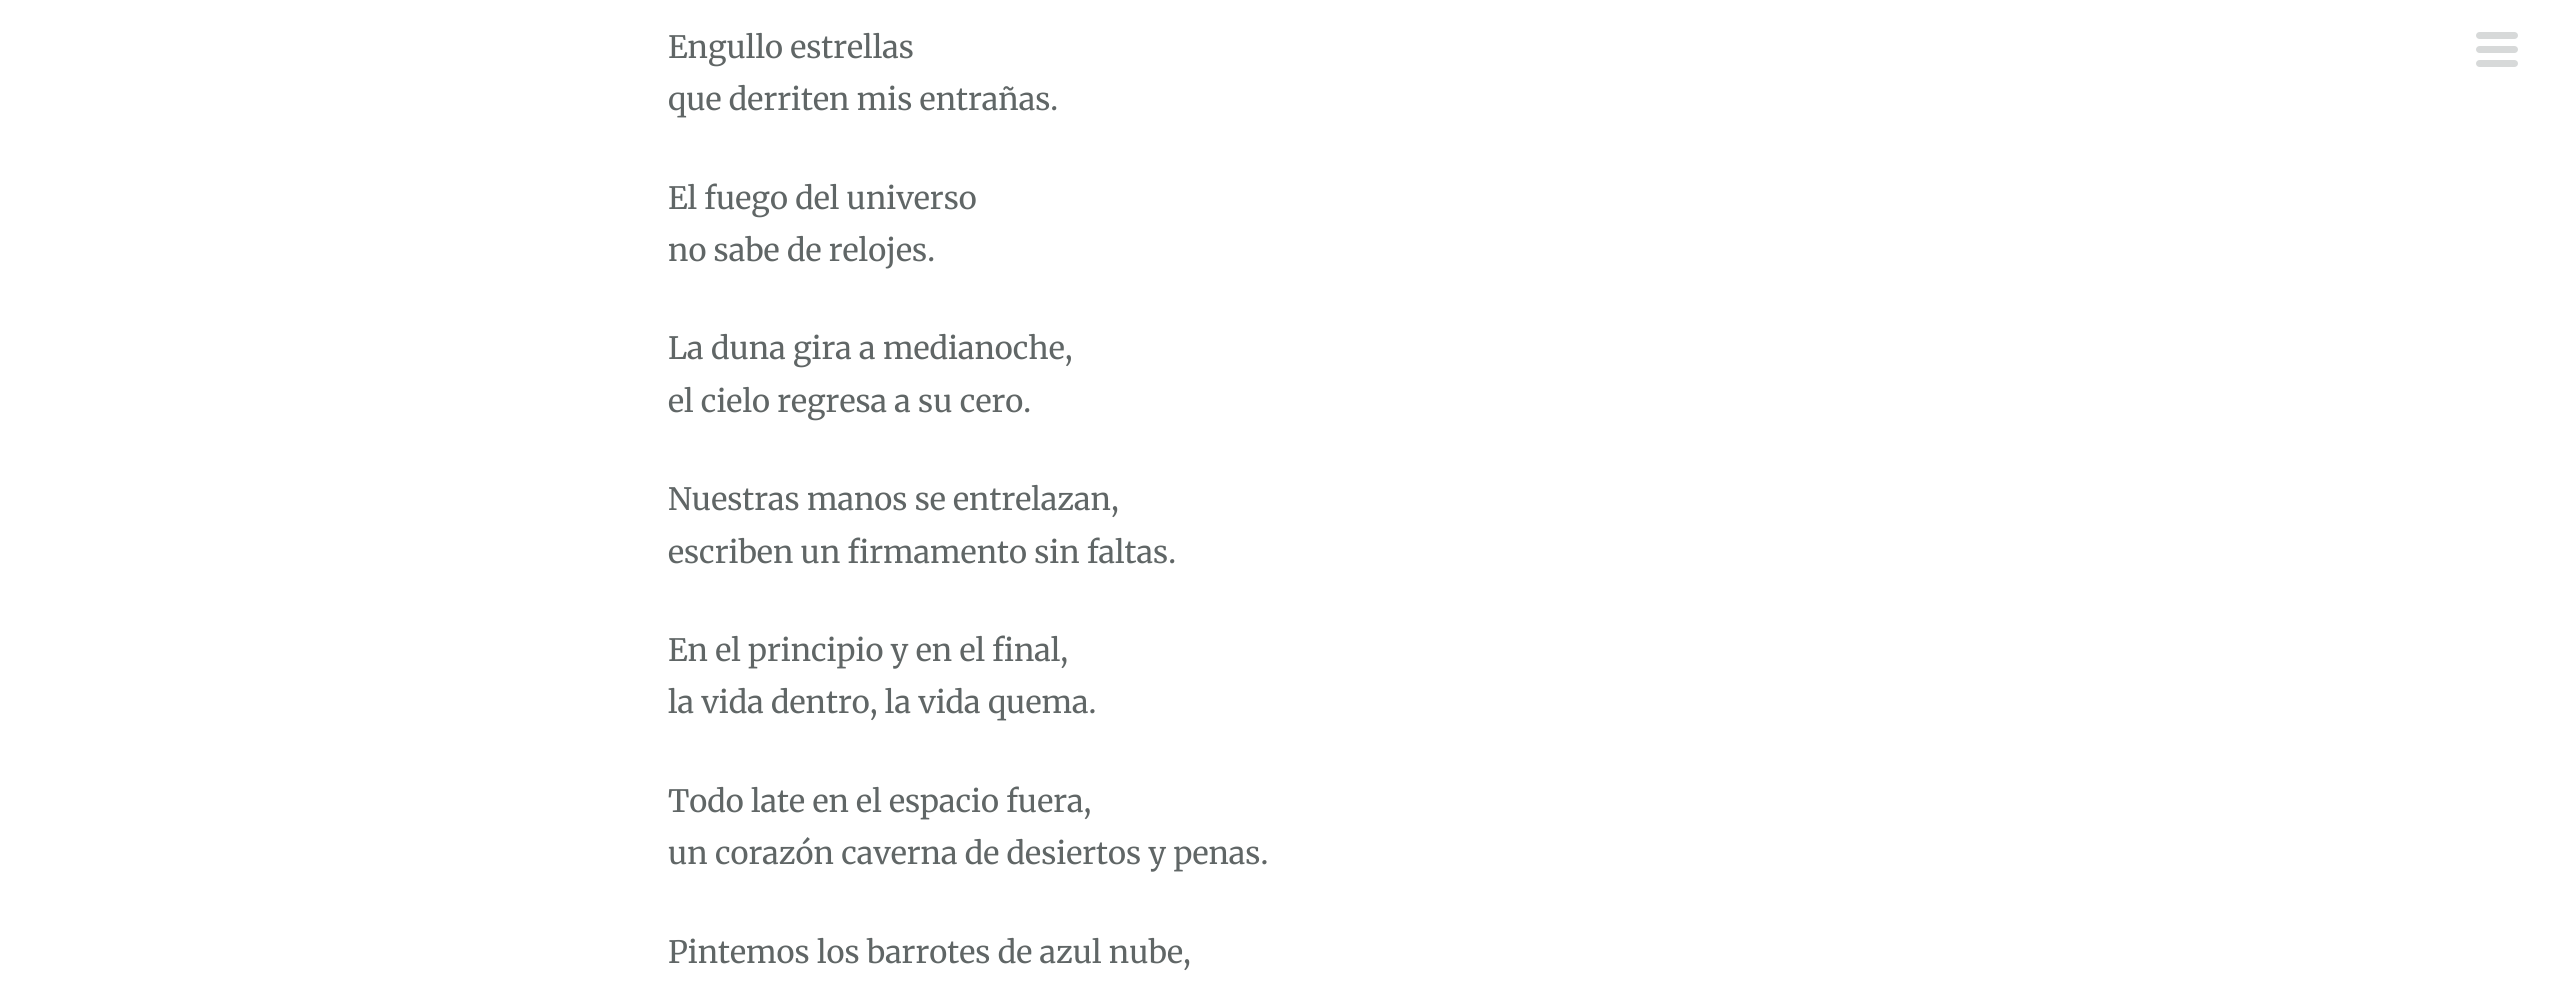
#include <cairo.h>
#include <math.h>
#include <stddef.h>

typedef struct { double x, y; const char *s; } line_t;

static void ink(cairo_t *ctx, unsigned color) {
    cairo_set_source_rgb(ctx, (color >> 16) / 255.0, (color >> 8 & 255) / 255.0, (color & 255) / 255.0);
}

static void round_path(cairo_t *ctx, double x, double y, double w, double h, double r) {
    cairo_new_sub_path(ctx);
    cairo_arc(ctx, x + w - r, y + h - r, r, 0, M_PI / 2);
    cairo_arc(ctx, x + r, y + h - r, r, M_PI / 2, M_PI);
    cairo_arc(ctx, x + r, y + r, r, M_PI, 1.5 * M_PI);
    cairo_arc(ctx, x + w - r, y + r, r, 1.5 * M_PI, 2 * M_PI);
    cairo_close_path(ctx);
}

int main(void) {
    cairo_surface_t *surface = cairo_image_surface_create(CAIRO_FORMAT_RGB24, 2559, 985);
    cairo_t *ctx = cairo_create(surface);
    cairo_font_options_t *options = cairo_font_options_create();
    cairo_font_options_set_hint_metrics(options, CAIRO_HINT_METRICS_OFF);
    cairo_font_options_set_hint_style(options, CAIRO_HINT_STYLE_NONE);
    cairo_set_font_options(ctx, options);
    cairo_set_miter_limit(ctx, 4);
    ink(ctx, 0xFFFFFF);
    cairo_paint(ctx);
    cairo_select_font_face(ctx, "Merriweather", CAIRO_FONT_SLANT_NORMAL, CAIRO_FONT_WEIGHT_NORMAL);
    cairo_set_font_size(ctx, 30.75);
    ink(ctx, 0x606666);
    {
        static const line_t items[] = {
            {668, 58, "Engullo estrellas"},
            {668, 110, "que derriten mis entrañas."},
            {668, 209, "El fuego del universo"},
            {668, 261, "no sabe de relojes."},
            {668, 359, "La duna gira a medianoche,"},
            {668, 412, "el cielo regresa a su cero."},
            {668, 510, "Nuestras manos se entrelazan,"},
            {668, 563, "escriben un firmamento sin faltas."},
            {668, 661, "En el principio y en el final,"},
            {668, 713, "la vida dentro, la vida quema."},
            {668, 812, "Todo late en el espacio fuera,"},
            {668, 864, "un corazón caverna de desiertos y penas."},
            {668, 963, "Pintemos los barrotes de azul nube,"},
        };
        for (size_t i = 0; i < sizeof items / sizeof *items; i++) {
            cairo_move_to(ctx, items[i].x, items[i].y);
            cairo_show_text(ctx, items[i].s);
        }
    }
    ink(ctx, 0xD7D9D9);
    round_path(ctx, 2476, 46, 42, 7, 3.5);
    cairo_fill(ctx);
    round_path(ctx, 2476, 32, 42, 7, 3.5);
    cairo_fill(ctx);
    round_path(ctx, 2476, 60, 42, 7, 3.5);
    cairo_fill(ctx);
    cairo_surface_write_to_png(surface, "image.png");
    cairo_font_options_destroy(options);
    cairo_destroy(ctx);
    cairo_surface_destroy(surface);
    return 0;
}
